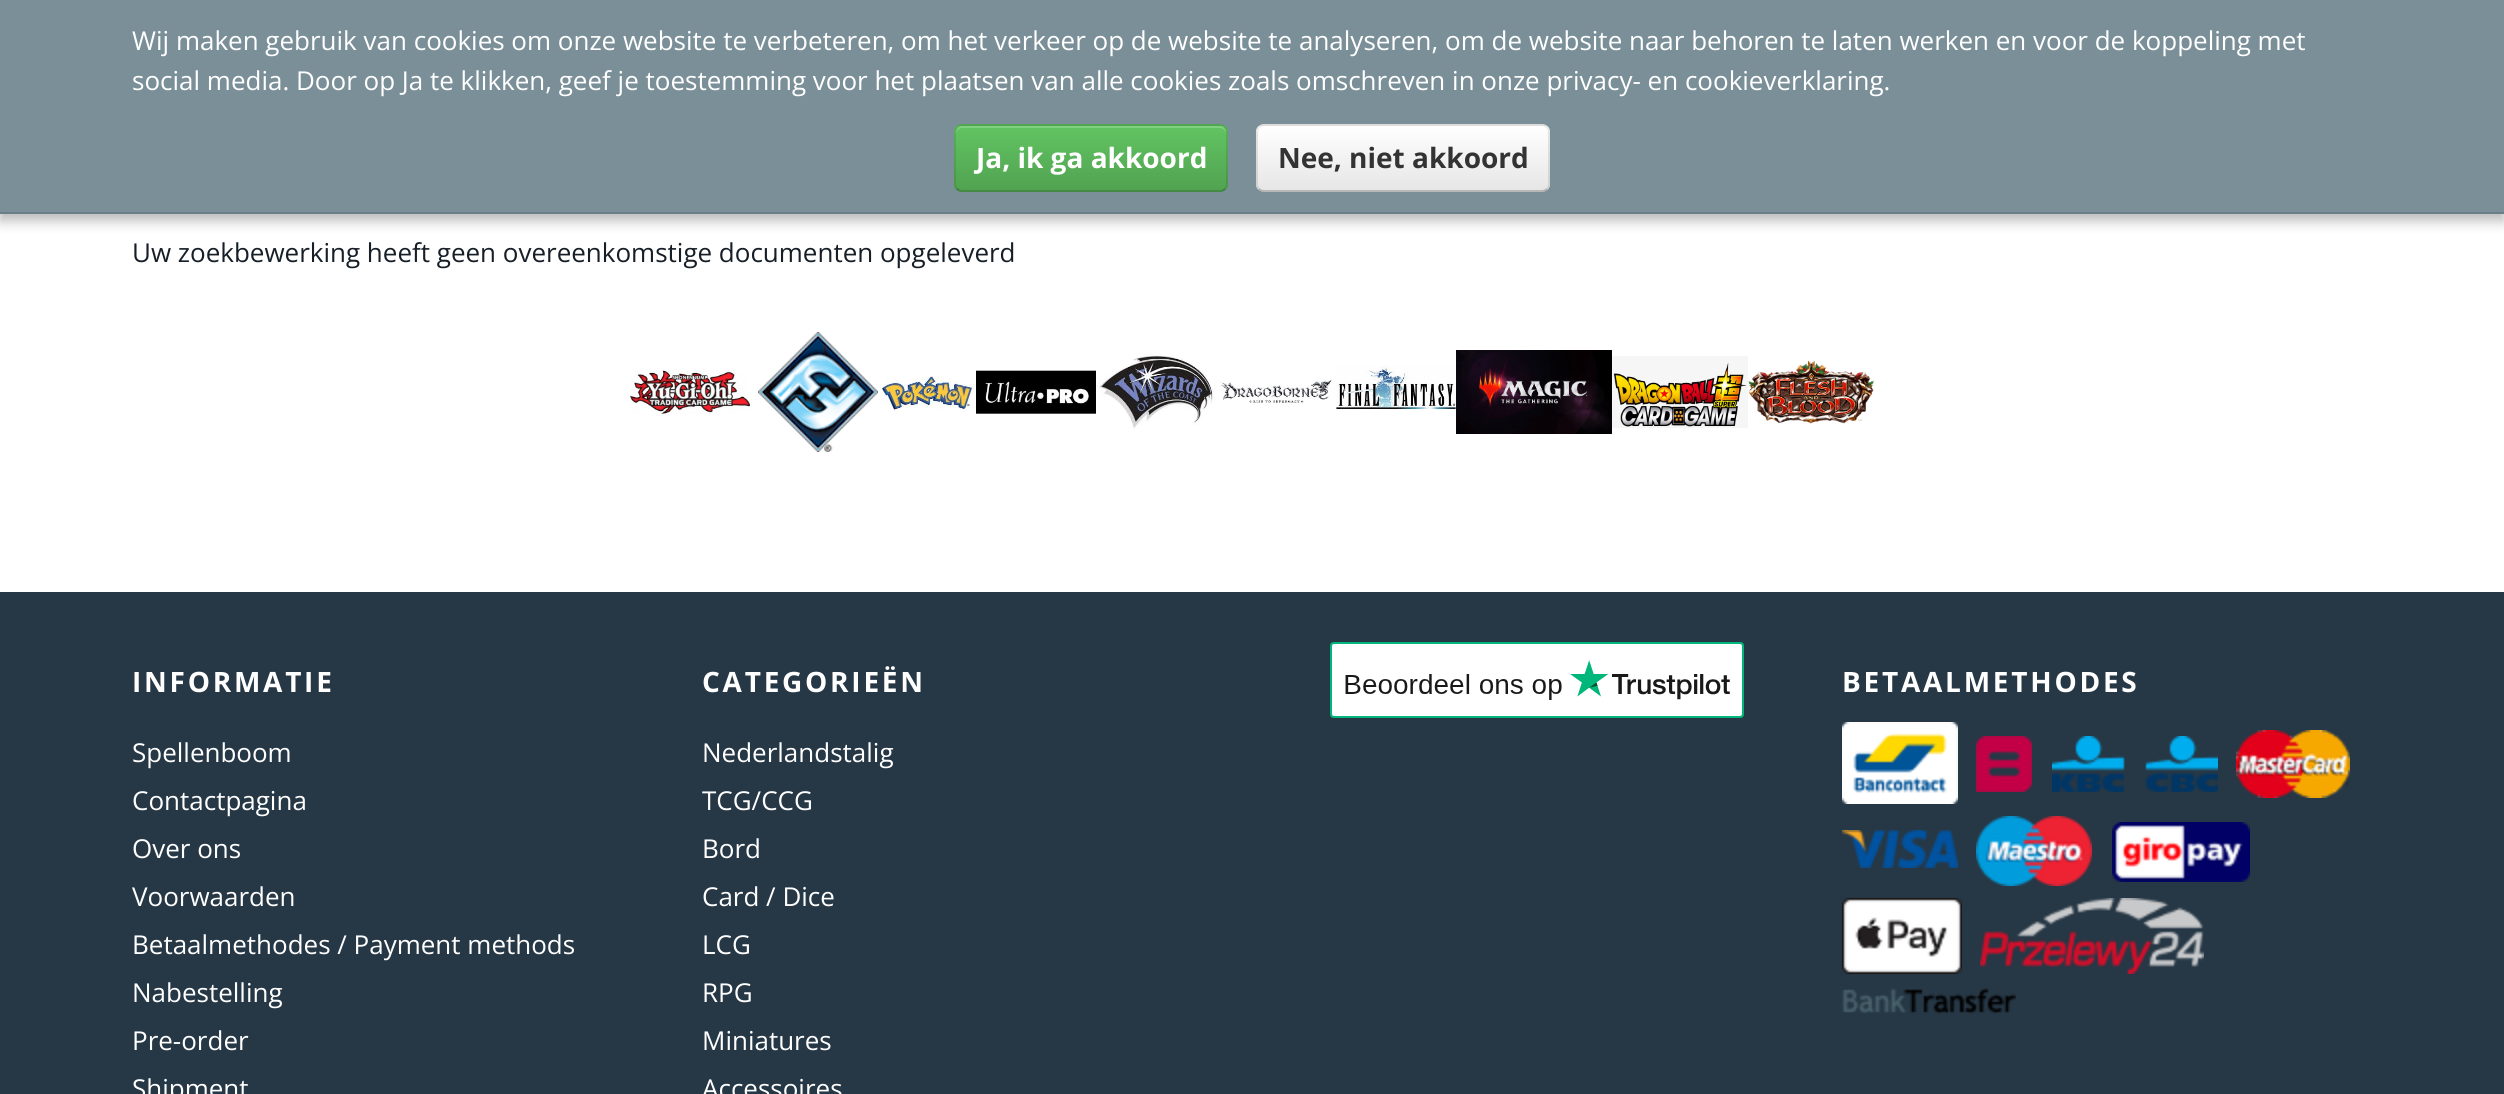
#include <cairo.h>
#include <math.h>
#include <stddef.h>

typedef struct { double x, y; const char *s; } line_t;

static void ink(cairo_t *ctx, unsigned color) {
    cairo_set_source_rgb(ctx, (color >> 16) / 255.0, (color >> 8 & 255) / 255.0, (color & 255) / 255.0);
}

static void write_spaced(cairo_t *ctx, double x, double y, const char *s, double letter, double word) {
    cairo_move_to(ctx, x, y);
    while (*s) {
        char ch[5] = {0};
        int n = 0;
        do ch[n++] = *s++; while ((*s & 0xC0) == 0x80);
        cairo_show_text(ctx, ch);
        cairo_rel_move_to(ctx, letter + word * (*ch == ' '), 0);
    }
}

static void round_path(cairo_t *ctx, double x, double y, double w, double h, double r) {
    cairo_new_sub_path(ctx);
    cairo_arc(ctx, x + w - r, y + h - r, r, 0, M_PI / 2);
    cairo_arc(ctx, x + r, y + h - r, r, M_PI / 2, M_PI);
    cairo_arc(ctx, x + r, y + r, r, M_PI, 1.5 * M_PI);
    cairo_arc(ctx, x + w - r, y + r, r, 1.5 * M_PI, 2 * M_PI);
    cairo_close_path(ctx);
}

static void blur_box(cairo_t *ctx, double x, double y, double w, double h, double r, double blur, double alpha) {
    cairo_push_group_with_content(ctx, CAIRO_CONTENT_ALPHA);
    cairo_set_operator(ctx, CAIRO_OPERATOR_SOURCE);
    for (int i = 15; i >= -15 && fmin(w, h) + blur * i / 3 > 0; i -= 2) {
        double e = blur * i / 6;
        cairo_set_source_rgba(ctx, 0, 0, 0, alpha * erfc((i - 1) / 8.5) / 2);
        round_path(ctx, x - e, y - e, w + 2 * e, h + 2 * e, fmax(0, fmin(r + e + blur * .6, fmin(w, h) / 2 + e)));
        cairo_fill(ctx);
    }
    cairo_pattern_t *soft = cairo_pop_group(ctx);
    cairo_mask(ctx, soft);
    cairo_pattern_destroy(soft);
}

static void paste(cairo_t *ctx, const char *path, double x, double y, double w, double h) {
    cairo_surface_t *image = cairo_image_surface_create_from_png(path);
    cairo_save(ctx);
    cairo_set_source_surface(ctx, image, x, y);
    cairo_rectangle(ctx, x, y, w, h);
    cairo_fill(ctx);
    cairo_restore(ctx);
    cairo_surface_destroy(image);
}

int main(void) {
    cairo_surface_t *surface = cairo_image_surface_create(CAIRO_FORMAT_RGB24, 2504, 1094);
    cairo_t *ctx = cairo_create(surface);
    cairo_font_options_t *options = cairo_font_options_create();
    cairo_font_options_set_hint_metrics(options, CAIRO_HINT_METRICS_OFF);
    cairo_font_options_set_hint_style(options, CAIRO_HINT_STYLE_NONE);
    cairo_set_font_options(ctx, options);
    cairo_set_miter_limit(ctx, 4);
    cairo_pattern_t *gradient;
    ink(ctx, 0xFFFFFF);
    cairo_paint(ctx);
    ink(ctx, 0x000000);
    blur_box(ctx, 0, 6, 2504, 214, 0, 7, 0.3);
    ink(ctx, 0x7A8F98);
    cairo_rectangle(ctx, 0, 0, 2504, 212);
    cairo_fill(ctx);
    ink(ctx, 0x697E87);
    cairo_rectangle(ctx, 0, 212, 2504, 2);
    cairo_fill(ctx);
    cairo_select_font_face(ctx, "Open Sans", CAIRO_FONT_SLANT_NORMAL, CAIRO_FONT_WEIGHT_NORMAL);
    cairo_set_font_size(ctx, 26);
    ink(ctx, 0xFFFFFF);
    cairo_move_to(ctx, 132, 50);
    cairo_show_text(ctx, "Wij maken gebruik van cookies om onze website te verbeteren, om het verkeer op de website te analyseren, om de website naar behoren te laten werken en voor de koppeling met");
    cairo_move_to(ctx, 132, 90);
    cairo_show_text(ctx, "social media. Door op Ja te klikken, geef je toestemming voor het plaatsen van alle cookies zoals omschreven in onze privacy- en cookieverklaring.");
    ink(ctx, 0x5BB75B);
    round_path(ctx, 954, 124, 274, 68, 8);
    cairo_fill(ctx);
    cairo_save(ctx);
    round_path(ctx, 954, 124, 274, 68, 8);
    cairo_clip(ctx);
    gradient = cairo_pattern_create_linear(1091, 126, 1091, 190);
    cairo_pattern_add_color_stop_rgba(gradient, 0, 0.384, 0.769, 0.384, 1);
    cairo_pattern_add_color_stop_rgba(gradient, 1, 0.318, 0.639, 0.318, 1);
    cairo_set_source(ctx, gradient);
    cairo_pattern_destroy(gradient);
    cairo_rectangle(ctx, 954, 126, 274, 64);
    cairo_fill(ctx);
    cairo_restore(ctx);
    ink(ctx, 0x81CF81);
    cairo_new_path(ctx);
    cairo_move_to(ctx, 962, 128);
    cairo_line_to(ctx, 1220, 128);
    cairo_curve_to(ctx, 1223, 128, 1226, 131, 1226, 134);
    cairo_curve_to(ctx, 1226, 131, 1225, 127, 1221, 126);
    cairo_line_to(ctx, 961, 126);
    cairo_curve_to(ctx, 957, 127, 956, 131, 956, 134);
    cairo_curve_to(ctx, 956, 131, 959, 128, 962, 128);
    cairo_close_path(ctx);
    cairo_fill(ctx);
    cairo_new_path(ctx);
    cairo_move_to(ctx, 1225, 189);
    cairo_curve_to(ctx, 1223.5, 190.5, 1222, 191, 1220, 191);
    cairo_line_to(ctx, 962, 191);
    cairo_curve_to(ctx, 960, 191, 958.5, 190.5, 957, 189);
    cairo_set_source_rgba(ctx, 0, 0, 0, 0.25);
    cairo_stroke(ctx);
    cairo_new_path(ctx);
    cairo_move_to(ctx, 957, 189);
    cairo_curve_to(ctx, 955.5, 187.5, 955, 186, 955, 184);
    cairo_line_to(ctx, 955, 132);
    cairo_curve_to(ctx, 955, 130, 955.5, 128.5, 957, 127);
    cairo_curve_to(ctx, 958.5, 125.5, 960, 125, 962, 125);
    cairo_line_to(ctx, 1220, 125);
    cairo_curve_to(ctx, 1222, 125, 1223.5, 125.5, 1225, 127);
    cairo_curve_to(ctx, 1226.5, 128.5, 1227, 130, 1227, 132);
    cairo_line_to(ctx, 1227, 184);
    cairo_curve_to(ctx, 1227, 186, 1226.5, 187.5, 1225, 189);
    cairo_set_source_rgba(ctx, 0, 0, 0, 0.1);
    cairo_stroke(ctx);
    cairo_select_font_face(ctx, "Open Sans", CAIRO_FONT_SLANT_NORMAL, CAIRO_FONT_WEIGHT_BOLD);
    cairo_set_font_size(ctx, 28);
    ink(ctx, 0xFFFFFF);
    cairo_move_to(ctx, 976, 168);
    cairo_show_text(ctx, "Ja, ik ga akkoord");
    ink(ctx, 0xF5F5F5);
    round_path(ctx, 1256, 124, 294, 68, 8);
    cairo_fill(ctx);
    cairo_save(ctx);
    round_path(ctx, 1256, 124, 294, 68, 8);
    cairo_clip(ctx);
    gradient = cairo_pattern_create_linear(1403, 126, 1403, 190);
    cairo_pattern_add_color_stop_rgba(gradient, 0, 1, 1, 1, 1);
    cairo_pattern_add_color_stop_rgba(gradient, 1, 0.902, 0.902, 0.902, 1);
    cairo_set_source(ctx, gradient);
    cairo_pattern_destroy(gradient);
    cairo_rectangle(ctx, 1256, 126, 294, 64);
    cairo_fill(ctx);
    cairo_restore(ctx);
    cairo_new_path(ctx);
    cairo_move_to(ctx, 1547, 189);
    cairo_curve_to(ctx, 1545.5, 190.5, 1544, 191, 1542, 191);
    cairo_line_to(ctx, 1264, 191);
    cairo_curve_to(ctx, 1262, 191, 1260.5, 190.5, 1259, 189);
    cairo_set_source_rgba(ctx, 0, 0, 0, 0.25);
    cairo_stroke(ctx);
    cairo_new_path(ctx);
    cairo_move_to(ctx, 1259, 189);
    cairo_curve_to(ctx, 1257.5, 187.5, 1257, 186, 1257, 184);
    cairo_line_to(ctx, 1257, 132);
    cairo_curve_to(ctx, 1257, 130, 1257.5, 128.5, 1259, 127);
    cairo_curve_to(ctx, 1260.5, 125.5, 1262, 125, 1264, 125);
    cairo_line_to(ctx, 1542, 125);
    cairo_curve_to(ctx, 1544, 125, 1545.5, 125.5, 1547, 127);
    cairo_curve_to(ctx, 1548.5, 128.5, 1549, 130, 1549, 132);
    cairo_line_to(ctx, 1549, 184);
    cairo_curve_to(ctx, 1549, 186, 1548.5, 187.5, 1547, 189);
    cairo_set_source_rgba(ctx, 0, 0, 0, 0.1);
    cairo_stroke(ctx);
    ink(ctx, 0x333333);
    cairo_move_to(ctx, 1278, 168);
    cairo_show_text(ctx, "Nee, niet akkoord");
    cairo_select_font_face(ctx, "Open Sans", CAIRO_FONT_SLANT_NORMAL, CAIRO_FONT_WEIGHT_NORMAL);
    cairo_set_font_size(ctx, 26);
    ink(ctx, 0x161E27);
    cairo_move_to(ctx, 132, 262);
    cairo_show_text(ctx, "Uw zoekbewerking heeft geen overeenkomstige documenten opgeleverd");
    paste(ctx, "media/1.png", 630, 370, 120, 44);
    paste(ctx, "media/2.png", 758, 332, 120, 120);
    paste(ctx, "media/3.png", 878, 376, 97, 36);
    paste(ctx, "media/4.png", 976, 370, 120, 44);
    paste(ctx, "media/5.png", 1097, 353, 119, 76);
    paste(ctx, "media/6.png", 1220, 379, 112, 24);
    paste(ctx, "media/7.png", 1336, 366, 120, 44);
    paste(ctx, "media/8.png", 1456, 350, 156, 84);
    paste(ctx, "media/9.png", 1612, 356, 136, 72);
    paste(ctx, "media/10.png", 1748, 360, 126, 64);
    ink(ctx, 0x263745);
    cairo_rectangle(ctx, 0, 592, 2504, 502);
    cairo_fill(ctx);
    cairo_select_font_face(ctx, "Open Sans", CAIRO_FONT_SLANT_NORMAL, CAIRO_FONT_WEIGHT_BOLD);
    cairo_set_font_size(ctx, 28);
    ink(ctx, 0xFFFFFF);
    write_spaced(ctx, 132, 692, "INFORMATIE", 2.75, 0);
    cairo_select_font_face(ctx, "Open Sans", CAIRO_FONT_SLANT_NORMAL, CAIRO_FONT_WEIGHT_NORMAL);
    cairo_set_font_size(ctx, 26);
    {
        static const line_t items[] = {
            {132, 762, "Spellenboom"},
            {132, 810, "Contactpagina"},
            {132, 858, "Over ons"},
            {132, 906, "Voorwaarden"},
            {132, 954, "Betaalmethodes / Payment methods"},
            {132, 1002, "Nabestelling"},
            {132, 1050, "Pre-order"},
            {132, 1098, "Shipment"},
        };
        for (size_t i = 0; i < sizeof items / sizeof *items; i++) {
            cairo_move_to(ctx, items[i].x, items[i].y);
            cairo_show_text(ctx, items[i].s);
        }
    }
    cairo_select_font_face(ctx, "Open Sans", CAIRO_FONT_SLANT_NORMAL, CAIRO_FONT_WEIGHT_BOLD);
    cairo_set_font_size(ctx, 28);
    write_spaced(ctx, 702, 692, "CATEGORIEËN", 2.75, 0);
    cairo_select_font_face(ctx, "Open Sans", CAIRO_FONT_SLANT_NORMAL, CAIRO_FONT_WEIGHT_NORMAL);
    cairo_set_font_size(ctx, 26);
    {
        static const line_t items[] = {
            {702, 762, "Nederlandstalig"},
            {702, 810, "TCG/CCG"},
            {702, 858, "Bord"},
            {702, 906, "Card / Dice"},
            {702, 954, "LCG"},
            {702, 1002, "RPG"},
            {702, 1050, "Miniatures"},
            {702, 1098, "Accessoires"},
        };
        for (size_t i = 0; i < sizeof items / sizeof *items; i++) {
            cairo_move_to(ctx, items[i].x, items[i].y);
            cairo_show_text(ctx, items[i].s);
        }
    }
    paste(ctx, "media/11.png", 1330, 642, 414, 76);
    cairo_select_font_face(ctx, "Open Sans", CAIRO_FONT_SLANT_NORMAL, CAIRO_FONT_WEIGHT_BOLD);
    cairo_set_font_size(ctx, 28);
    write_spaced(ctx, 1842, 692, "BETAALMETHODES", 2.75, 0);
    paste(ctx, "media/12.png", 1842, 722, 116, 82);
    paste(ctx, "media/13.png", 1976, 736, 56, 56);
    paste(ctx, "media/14.png", 2052, 736, 166, 56);
    paste(ctx, "media/15.png", 2236, 730, 114, 68);
    paste(ctx, "media/16.png", 1842, 830, 116, 38);
    paste(ctx, "media/17.png", 1976, 816, 116, 70);
    paste(ctx, "media/18.png", 2112, 822, 138, 60);
    paste(ctx, "media/19.png", 1842, 898, 120, 76);
    paste(ctx, "media/20.png", 1980, 898, 224, 76);
    paste(ctx, "media/21.png", 1842, 988, 174, 26);
    cairo_surface_write_to_png(surface, "image.png");
    cairo_font_options_destroy(options);
    cairo_destroy(ctx);
    cairo_surface_destroy(surface);
    return 0;
}
